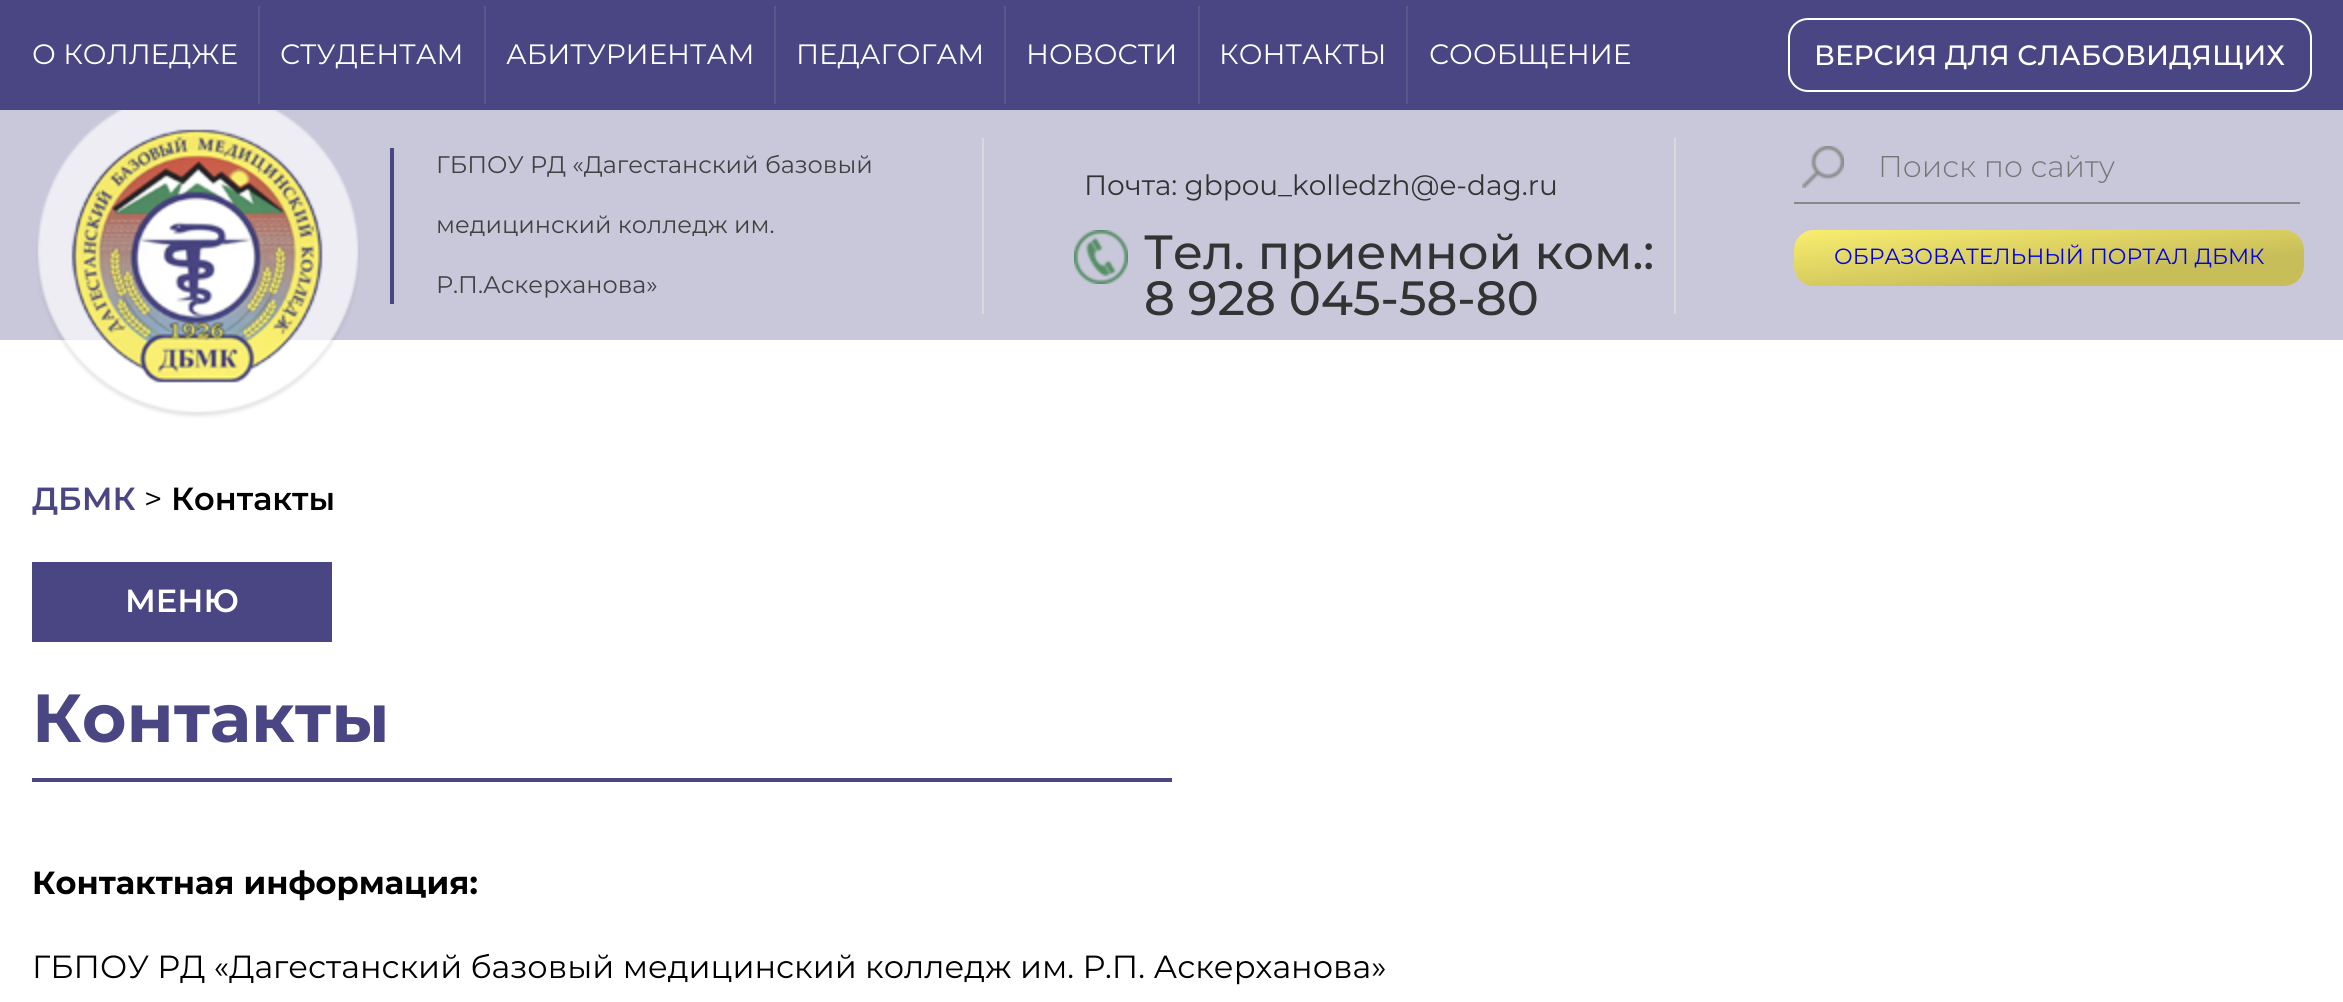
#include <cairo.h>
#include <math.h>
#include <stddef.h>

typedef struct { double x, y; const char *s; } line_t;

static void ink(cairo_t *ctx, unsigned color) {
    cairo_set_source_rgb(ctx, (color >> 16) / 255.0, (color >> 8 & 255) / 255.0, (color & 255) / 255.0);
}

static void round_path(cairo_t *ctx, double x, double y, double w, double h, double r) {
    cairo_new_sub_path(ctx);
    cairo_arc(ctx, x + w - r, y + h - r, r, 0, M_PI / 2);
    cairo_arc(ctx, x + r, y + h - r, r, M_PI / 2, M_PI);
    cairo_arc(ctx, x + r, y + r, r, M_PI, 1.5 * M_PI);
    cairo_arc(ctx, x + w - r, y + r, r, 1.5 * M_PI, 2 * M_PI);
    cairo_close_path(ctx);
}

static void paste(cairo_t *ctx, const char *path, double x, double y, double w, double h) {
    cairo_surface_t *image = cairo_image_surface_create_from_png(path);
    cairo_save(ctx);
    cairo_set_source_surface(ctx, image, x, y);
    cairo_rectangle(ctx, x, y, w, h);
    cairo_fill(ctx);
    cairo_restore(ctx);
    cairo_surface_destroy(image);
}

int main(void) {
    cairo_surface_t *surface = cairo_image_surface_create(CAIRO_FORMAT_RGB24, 2343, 1002);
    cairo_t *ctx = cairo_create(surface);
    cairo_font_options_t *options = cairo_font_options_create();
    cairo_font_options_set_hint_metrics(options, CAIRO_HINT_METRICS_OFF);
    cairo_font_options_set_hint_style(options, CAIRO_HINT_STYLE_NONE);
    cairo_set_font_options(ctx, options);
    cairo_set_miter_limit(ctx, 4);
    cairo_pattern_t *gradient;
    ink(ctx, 0xFFFFFF);
    cairo_paint(ctx);
    ink(ctx, 0x494683);
    cairo_rectangle(ctx, 0, 0, 2343, 110);
    cairo_fill(ctx);
    cairo_select_font_face(ctx, "Montserrat", CAIRO_FONT_SLANT_NORMAL, CAIRO_FONT_WEIGHT_NORMAL);
    cairo_set_font_size(ctx, 28);
    ink(ctx, 0xFFFFFF);
    cairo_move_to(ctx, 32, 64);
    cairo_show_text(ctx, "О КОЛЛЕДЖЕ");
    ink(ctx, 0x5A588B);
    cairo_rectangle(ctx, 258, 6, 2, 98);
    cairo_fill(ctx);
    ink(ctx, 0xFFFFFF);
    cairo_move_to(ctx, 280, 64);
    cairo_show_text(ctx, "СТУДЕНТАМ");
    ink(ctx, 0x5A588B);
    cairo_rectangle(ctx, 484, 6, 2, 98);
    cairo_fill(ctx);
    ink(ctx, 0xFFFFFF);
    cairo_move_to(ctx, 506, 64);
    cairo_show_text(ctx, "АБИТУРИЕНТАМ");
    ink(ctx, 0x5A588B);
    cairo_rectangle(ctx, 774, 6, 2, 98);
    cairo_fill(ctx);
    ink(ctx, 0xFFFFFF);
    cairo_move_to(ctx, 796, 64);
    cairo_show_text(ctx, "ПЕДАГОГАМ");
    ink(ctx, 0x5A588B);
    cairo_rectangle(ctx, 1004, 6, 2, 98);
    cairo_fill(ctx);
    ink(ctx, 0xFFFFFF);
    cairo_move_to(ctx, 1026, 64);
    cairo_show_text(ctx, "НОВОСТИ");
    ink(ctx, 0x5A588B);
    cairo_rectangle(ctx, 1198, 6, 2, 98);
    cairo_fill(ctx);
    ink(ctx, 0xFFFFFF);
    cairo_move_to(ctx, 1219, 64);
    cairo_show_text(ctx, "КОНТАКТЫ");
    ink(ctx, 0x5A588B);
    cairo_rectangle(ctx, 1406, 6, 2, 98);
    cairo_fill(ctx);
    ink(ctx, 0xFFFFFF);
    cairo_move_to(ctx, 1429, 64);
    cairo_show_text(ctx, "СООБЩЕНИЕ");
    round_path(ctx, 1789, 19, 522, 72, 19);
    cairo_stroke(ctx);
    cairo_select_font_face(ctx, "Montserrat Medium", CAIRO_FONT_SLANT_NORMAL, CAIRO_FONT_WEIGHT_NORMAL);
    cairo_move_to(ctx, 1814, 65);
    cairo_show_text(ctx, "ВЕРСИЯ ДЛЯ СЛАБОВИДЯЩИХ");
    ink(ctx, 0xC9C8DA);
    cairo_rectangle(ctx, 0, 110, 2343, 230);
    cairo_fill(ctx);
    paste(ctx, "media/1.png", 36, 110, 324, 308);
    ink(ctx, 0x494683);
    cairo_rectangle(ctx, 390, 148, 4, 156);
    cairo_fill(ctx);
    cairo_select_font_face(ctx, "Montserrat", CAIRO_FONT_SLANT_NORMAL, CAIRO_FONT_WEIGHT_NORMAL);
    cairo_set_font_size(ctx, 24);
    ink(ctx, 0x414141);
    {
        static const line_t items[] = {
            {436, 173, "ГБПОУ РД «Дагестанский базовый"},
            {436, 233, "медицинский колледж им."},
            {436, 293, "Р.П.Аскерханова»"},
        };
        for (size_t i = 0; i < sizeof items / sizeof *items; i++) {
            cairo_move_to(ctx, items[i].x, items[i].y);
            cairo_show_text(ctx, items[i].s);
        }
    }
    ink(ctx, 0xD9D9D9);
    cairo_rectangle(ctx, 982, 138, 2, 176);
    cairo_fill(ctx);
    cairo_set_font_size(ctx, 28);
    ink(ctx, 0x333333);
    cairo_move_to(ctx, 1084, 195);
    cairo_show_text(ctx, "Почта: gbpou_kolledzh@e-dag.ru");
    paste(ctx, "media/2.png", 1074, 230, 54, 54);
    cairo_select_font_face(ctx, "Montserrat Medium", CAIRO_FONT_SLANT_NORMAL, CAIRO_FONT_WEIGHT_NORMAL);
    cairo_set_font_size(ctx, 48);
    cairo_move_to(ctx, 1144, 269);
    cairo_show_text(ctx, "Тел. приемной ком.:");
    cairo_move_to(ctx, 1144, 315);
    cairo_show_text(ctx, "8 928 045-58-80");
    ink(ctx, 0xD9D9D9);
    cairo_rectangle(ctx, 1674, 138, 2, 176);
    cairo_fill(ctx);
    ink(ctx, 0x888888);
    cairo_rectangle(ctx, 1794, 202, 506, 2);
    cairo_fill(ctx);
    paste(ctx, "media/3.png", 1802, 146, 42, 42);
    cairo_select_font_face(ctx, "Montserrat Light", CAIRO_FONT_SLANT_NORMAL, CAIRO_FONT_WEIGHT_NORMAL);
    cairo_set_font_size(ctx, 30);
    ink(ctx, 0x757575);
    cairo_move_to(ctx, 1878, 177);
    cairo_show_text(ctx, "Поиск по сайту");
    ink(ctx, 0xFAEE6F);
    round_path(ctx, 1794, 230, 510, 56, 20);
    cairo_fill(ctx);
    gradient = cairo_pattern_create_linear(2055, 313, 2043, 203);
    cairo_pattern_add_color_stop_rgba(gradient, 0, 0, 0, 0, 0.2);
    cairo_pattern_add_color_stop_rgba(gradient, 0.3, 0, 0, 0, 0.2);
    cairo_pattern_add_color_stop_rgba(gradient, 1, 0, 0, 0, 0);
    cairo_set_source(ctx, gradient);
    cairo_pattern_destroy(gradient);
    round_path(ctx, 1794, 230, 510, 56, 20);
    cairo_fill(ctx);
    cairo_select_font_face(ctx, "Montserrat", CAIRO_FONT_SLANT_NORMAL, CAIRO_FONT_WEIGHT_NORMAL);
    cairo_set_font_size(ctx, 22);
    ink(ctx, 0x0000EE);
    cairo_move_to(ctx, 1834, 264);
    cairo_show_text(ctx, "ОБРАЗОВАТЕЛЬНЫЙ ПОРТАЛ ДБМК");
    cairo_select_font_face(ctx, "Montserrat SemiBold", CAIRO_FONT_SLANT_NORMAL, CAIRO_FONT_WEIGHT_NORMAL);
    cairo_set_font_size(ctx, 32);
    ink(ctx, 0x494683);
    cairo_move_to(ctx, 32, 510);
    cairo_show_text(ctx, "ДБМК");
    cairo_select_font_face(ctx, "Montserrat", CAIRO_FONT_SLANT_NORMAL, CAIRO_FONT_WEIGHT_NORMAL);
    ink(ctx, 0x000000);
    cairo_move_to(ctx, 144, 510);
    cairo_show_text(ctx, ">");
    cairo_select_font_face(ctx, "Montserrat SemiBold", CAIRO_FONT_SLANT_NORMAL, CAIRO_FONT_WEIGHT_NORMAL);
    cairo_move_to(ctx, 171, 510);
    cairo_show_text(ctx, "Контакты");
    ink(ctx, 0x494683);
    cairo_rectangle(ctx, 32, 562, 300, 80);
    cairo_fill(ctx);
    ink(ctx, 0xFFFFFF);
    cairo_move_to(ctx, 125, 612);
    cairo_show_text(ctx, "МЕНЮ");
    cairo_select_font_face(ctx, "Montserrat", CAIRO_FONT_SLANT_NORMAL, CAIRO_FONT_WEIGHT_BOLD);
    cairo_set_font_size(ctx, 68);
    ink(ctx, 0x494683);
    cairo_move_to(ctx, 32, 742);
    cairo_show_text(ctx, "Контакты");
    cairo_rectangle(ctx, 32, 778, 1140, 4);
    cairo_fill(ctx);
    cairo_set_font_size(ctx, 32);
    ink(ctx, 0x000000);
    cairo_move_to(ctx, 32, 894);
    cairo_show_text(ctx, "Контактная информация:");
    cairo_select_font_face(ctx, "Montserrat", CAIRO_FONT_SLANT_NORMAL, CAIRO_FONT_WEIGHT_NORMAL);
    cairo_move_to(ctx, 32, 978);
    cairo_show_text(ctx, "ГБПОУ РД «Дагестанский базовый медицинский колледж им. Р.П. Аскерханова»");
    cairo_surface_write_to_png(surface, "image.png");
    cairo_font_options_destroy(options);
    cairo_destroy(ctx);
    cairo_surface_destroy(surface);
    return 0;
}
